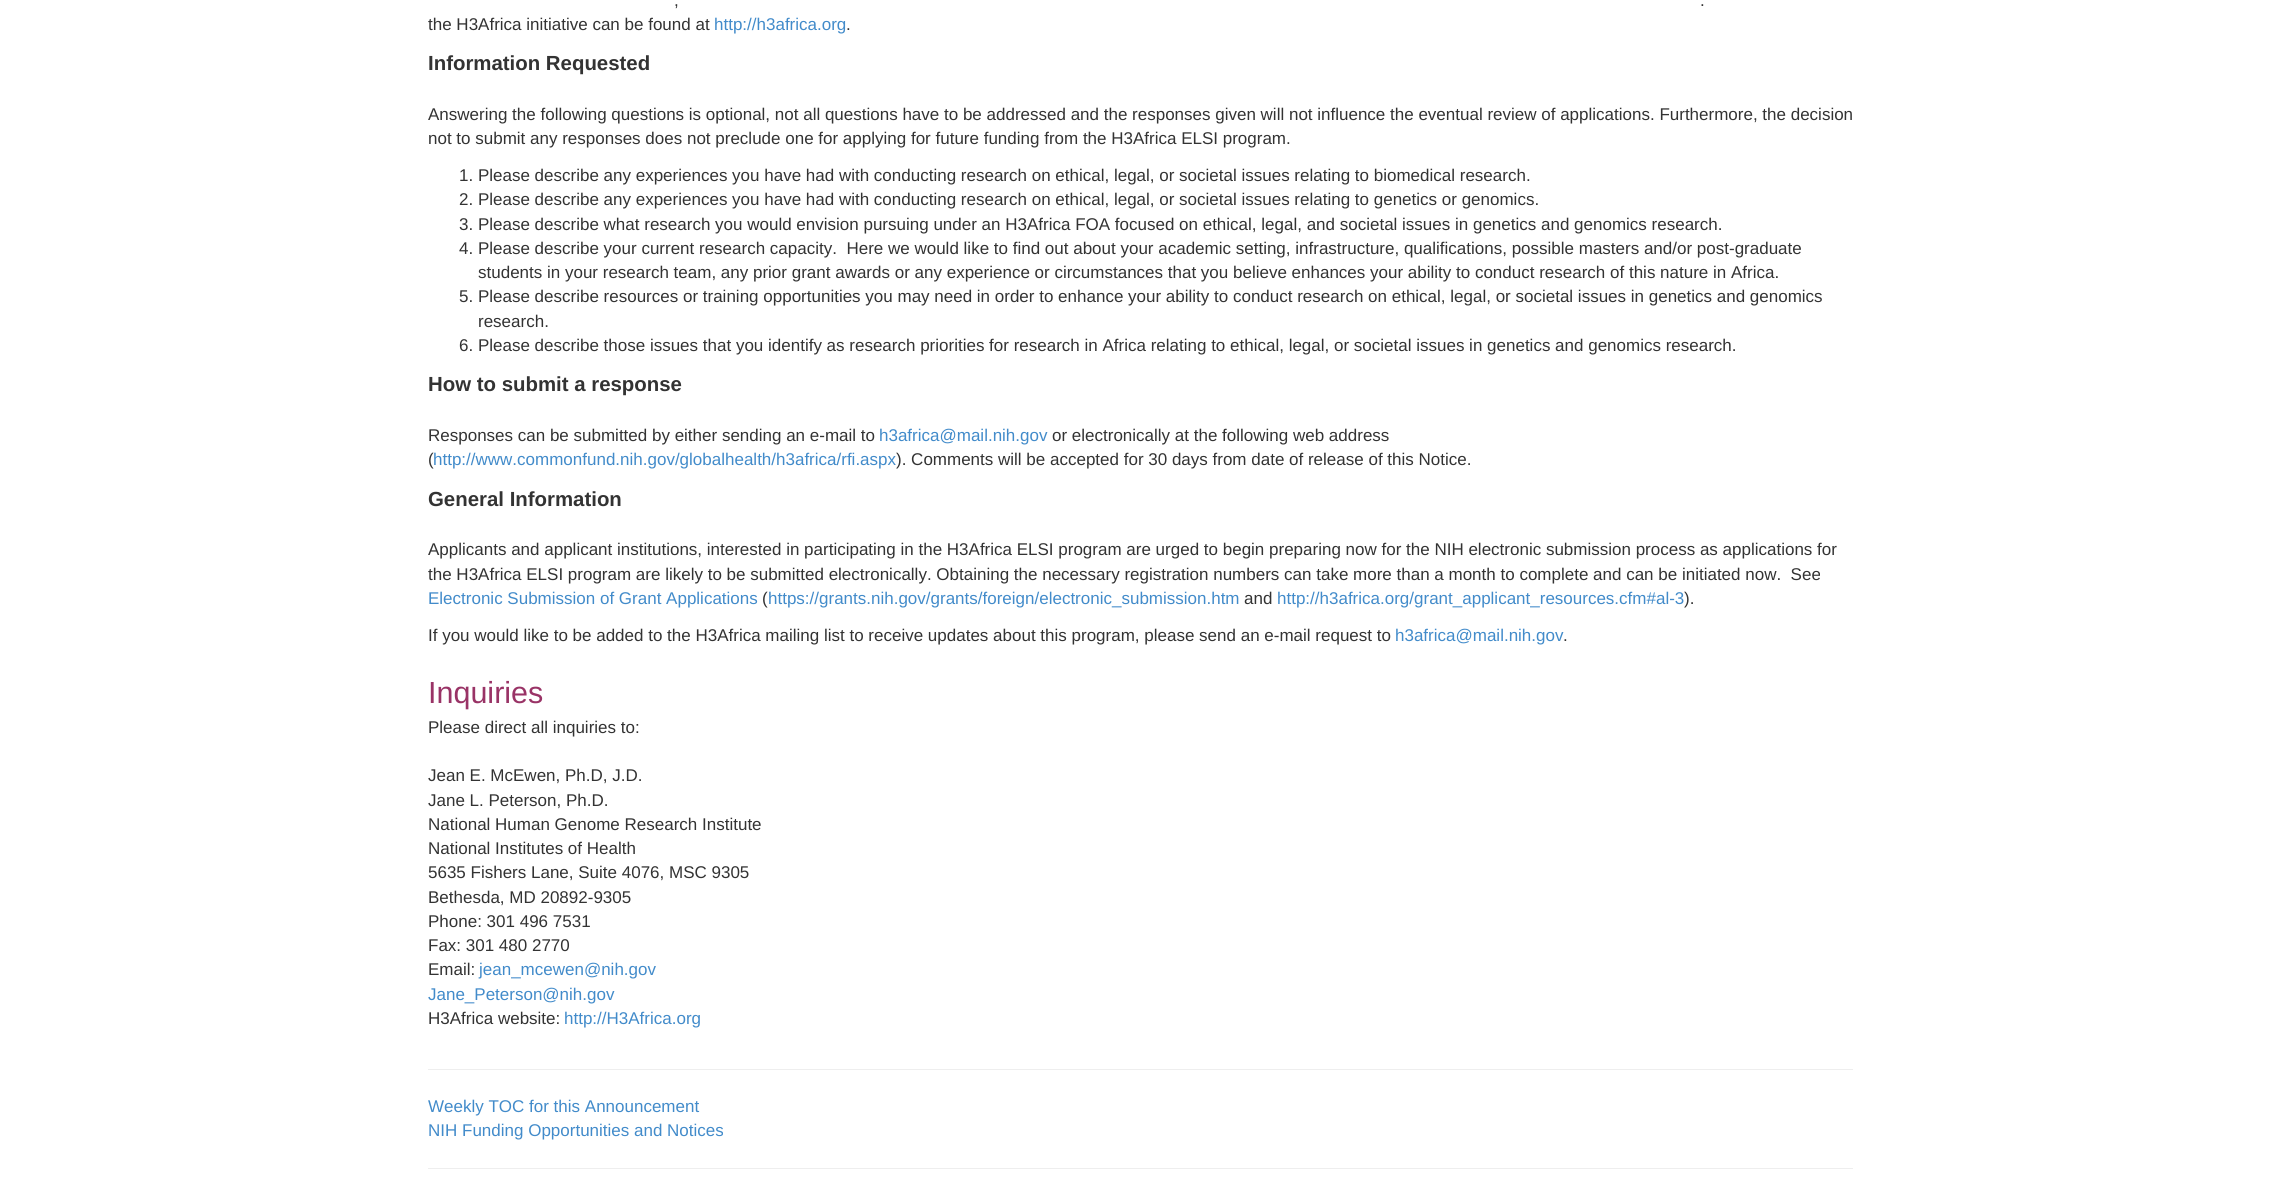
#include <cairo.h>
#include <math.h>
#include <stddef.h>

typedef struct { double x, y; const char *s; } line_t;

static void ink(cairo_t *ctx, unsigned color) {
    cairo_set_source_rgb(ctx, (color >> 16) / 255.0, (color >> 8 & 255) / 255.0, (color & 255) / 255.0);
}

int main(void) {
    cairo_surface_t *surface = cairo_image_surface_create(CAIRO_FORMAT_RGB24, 2279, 1182);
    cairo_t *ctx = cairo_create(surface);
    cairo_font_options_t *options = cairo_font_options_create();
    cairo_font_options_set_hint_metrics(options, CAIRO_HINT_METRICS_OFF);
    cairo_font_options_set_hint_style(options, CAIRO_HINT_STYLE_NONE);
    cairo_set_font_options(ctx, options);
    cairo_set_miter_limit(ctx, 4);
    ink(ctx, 0xFFFFFF);
    cairo_paint(ctx);
    cairo_select_font_face(ctx, "Liberation Sans", CAIRO_FONT_SLANT_NORMAL, CAIRO_FONT_WEIGHT_NORMAL);
    cairo_set_font_size(ctx, 17);
    ink(ctx, 0x333333);
    {
        static const line_t items[] = {
            {674, 6, ","},
            {1700, 6, "."},
            {428, 30, "the H3Africa initiative can be found at"},
        };
        for (size_t i = 0; i < sizeof items / sizeof *items; i++) {
            cairo_move_to(ctx, items[i].x, items[i].y);
            cairo_show_text(ctx, items[i].s);
        }
    }
    ink(ctx, 0x428BCA);
    cairo_move_to(ctx, 714, 30);
    cairo_show_text(ctx, "http://h3africa.org");
    ink(ctx, 0x333333);
    cairo_move_to(ctx, 846, 30);
    cairo_show_text(ctx, ".");
    cairo_select_font_face(ctx, "Liberation Sans", CAIRO_FONT_SLANT_NORMAL, CAIRO_FONT_WEIGHT_BOLD);
    cairo_set_font_size(ctx, 20.4);
    cairo_move_to(ctx, 428, 70);
    cairo_show_text(ctx, "Information Requested");
    cairo_select_font_face(ctx, "Liberation Sans", CAIRO_FONT_SLANT_NORMAL, CAIRO_FONT_WEIGHT_NORMAL);
    cairo_set_font_size(ctx, 17);
    {
        static const line_t items[] = {
            {428, 120, "Answering the following questions is optional, not all questions have to be addressed and the responses given will not influence the eventual review of applications. Furthermore, the decision"},
            {428, 144, "not to submit any responses does not preclude one for applying for future funding from the H3Africa ELSI program."},
            {459, 181, "1. Please describe any experiences you have had with conducting research on ethical, legal, or societal issues relating to biomedical research."},
            {459, 205, "2. Please describe any experiences you have had with conducting research on ethical, legal, or societal issues relating to genetics or genomics."},
            {459, 230, "3. Please describe what research you would envision pursuing under an H3Africa FOA focused on ethical, legal, and societal issues in genetics and genomics research."},
            {459, 254, "4. Please describe your current research capacity.  Here we would like to find out about your academic setting, infrastructure, qualifications, possible masters and/or post-graduate"},
            {478, 278, "students in your research team, any prior grant awards or any experience or circumstances that you believe enhances your ability to conduct research of this nature in Africa."},
            {459, 302, "5. Please describe resources or training opportunities you may need in order to enhance your ability to conduct research on ethical, legal, or societal issues in genetics and genomics"},
            {478, 327, "research."},
            {459, 351, "6. Please describe those issues that you identify as research priorities for research in Africa relating to ethical, legal, or societal issues in genetics and genomics research."},
        };
        for (size_t i = 0; i < sizeof items / sizeof *items; i++) {
            cairo_move_to(ctx, items[i].x, items[i].y);
            cairo_show_text(ctx, items[i].s);
        }
    }
    cairo_select_font_face(ctx, "Liberation Sans", CAIRO_FONT_SLANT_NORMAL, CAIRO_FONT_WEIGHT_BOLD);
    cairo_set_font_size(ctx, 20.4);
    cairo_move_to(ctx, 428, 391);
    cairo_show_text(ctx, "How to submit a response");
    cairo_select_font_face(ctx, "Liberation Sans", CAIRO_FONT_SLANT_NORMAL, CAIRO_FONT_WEIGHT_NORMAL);
    cairo_set_font_size(ctx, 17);
    cairo_move_to(ctx, 428, 441);
    cairo_show_text(ctx, "Responses can be submitted by either sending an e-mail to");
    ink(ctx, 0x428BCA);
    cairo_move_to(ctx, 879, 441);
    cairo_show_text(ctx, "h3africa@mail.nih.gov");
    ink(ctx, 0x333333);
    cairo_move_to(ctx, 1052, 441);
    cairo_show_text(ctx, "or electronically at the following web address");
    cairo_move_to(ctx, 428, 465);
    cairo_show_text(ctx, "(");
    ink(ctx, 0x428BCA);
    cairo_move_to(ctx, 433, 465);
    cairo_show_text(ctx, "http://www.commonfund.nih.gov/globalhealth/h3africa/rfi.aspx");
    ink(ctx, 0x333333);
    cairo_move_to(ctx, 896, 465);
    cairo_show_text(ctx, "). Comments will be accepted for 30 days from date of release of this Notice.");
    cairo_select_font_face(ctx, "Liberation Sans", CAIRO_FONT_SLANT_NORMAL, CAIRO_FONT_WEIGHT_BOLD);
    cairo_set_font_size(ctx, 20.4);
    cairo_move_to(ctx, 428, 506);
    cairo_show_text(ctx, "General Information");
    cairo_select_font_face(ctx, "Liberation Sans", CAIRO_FONT_SLANT_NORMAL, CAIRO_FONT_WEIGHT_NORMAL);
    cairo_set_font_size(ctx, 17);
    cairo_move_to(ctx, 428, 555);
    cairo_show_text(ctx, "Applicants and applicant institutions, interested in participating in the H3Africa ELSI program are urged to begin preparing now for the NIH electronic submission process as applications for");
    cairo_move_to(ctx, 428, 580);
    cairo_show_text(ctx, "the H3Africa ELSI program are likely to be submitted electronically. Obtaining the necessary registration numbers can take more than a month to complete and can be initiated now.  See");
    ink(ctx, 0x428BCA);
    cairo_move_to(ctx, 428, 604);
    cairo_show_text(ctx, "Electronic Submission of Grant Applications");
    ink(ctx, 0x333333);
    cairo_move_to(ctx, 762, 604);
    cairo_show_text(ctx, "(");
    ink(ctx, 0x428BCA);
    cairo_move_to(ctx, 768, 604);
    cairo_show_text(ctx, "https://grants.nih.gov/grants/foreign/electronic_submission.htm");
    ink(ctx, 0x333333);
    cairo_move_to(ctx, 1244, 604);
    cairo_show_text(ctx, "and");
    ink(ctx, 0x428BCA);
    cairo_move_to(ctx, 1277, 604);
    cairo_show_text(ctx, "http://h3africa.org/grant_applicant_resources.cfm#al-3");
    ink(ctx, 0x333333);
    cairo_move_to(ctx, 1684, 604);
    cairo_show_text(ctx, ").");
    cairo_move_to(ctx, 428, 641);
    cairo_show_text(ctx, "If you would like to be added to the H3Africa mailing list to receive updates about this program, please send an e-mail request to");
    ink(ctx, 0x428BCA);
    cairo_move_to(ctx, 1395, 641);
    cairo_show_text(ctx, "h3africa@mail.nih.gov");
    ink(ctx, 0x333333);
    cairo_move_to(ctx, 1563, 641);
    cairo_show_text(ctx, ".");
    cairo_set_font_size(ctx, 30.5);
    ink(ctx, 0x993366);
    cairo_move_to(ctx, 428, 703);
    cairo_show_text(ctx, "Inquiries");
    cairo_set_font_size(ctx, 17);
    ink(ctx, 0x333333);
    {
        static const line_t items[] = {
            {428, 733, "Please direct all inquiries to:"},
            {428, 781, "Jean E. McEwen, Ph.D, J.D."},
            {428, 806, "Jane L. Peterson, Ph.D."},
            {428, 830, "National Human Genome Research Institute"},
            {428, 854, "National Institutes of Health"},
            {428, 878, "5635 Fishers Lane, Suite 4076, MSC 9305"},
            {428, 903, "Bethesda, MD 20892-9305"},
            {428, 927, "Phone: 301 496 7531"},
            {428, 951, "Fax: 301 480 2770"},
            {428, 975, "Email:"},
        };
        for (size_t i = 0; i < sizeof items / sizeof *items; i++) {
            cairo_move_to(ctx, items[i].x, items[i].y);
            cairo_show_text(ctx, items[i].s);
        }
    }
    ink(ctx, 0x428BCA);
    cairo_move_to(ctx, 479, 975);
    cairo_show_text(ctx, "jean_mcewen@nih.gov");
    cairo_move_to(ctx, 428, 1000);
    cairo_show_text(ctx, "Jane_Peterson@nih.gov");
    ink(ctx, 0x333333);
    cairo_move_to(ctx, 428, 1024);
    cairo_show_text(ctx, "H3Africa website:");
    ink(ctx, 0x428BCA);
    cairo_move_to(ctx, 564, 1024);
    cairo_show_text(ctx, "http://H3Africa.org");
    ink(ctx, 0xEEEEEE);
    cairo_rectangle(ctx, 428, 1069, 1425, 1);
    cairo_fill(ctx);
    ink(ctx, 0x428BCA);
    cairo_move_to(ctx, 428, 1112);
    cairo_show_text(ctx, "Weekly TOC for this Announcement");
    cairo_move_to(ctx, 428, 1136);
    cairo_show_text(ctx, "NIH Funding Opportunities and Notices");
    ink(ctx, 0xEEEEEE);
    cairo_rectangle(ctx, 428, 1168, 1425, 1);
    cairo_fill(ctx);
    cairo_surface_write_to_png(surface, "image.png");
    cairo_font_options_destroy(options);
    cairo_destroy(ctx);
    cairo_surface_destroy(surface);
    return 0;
}
